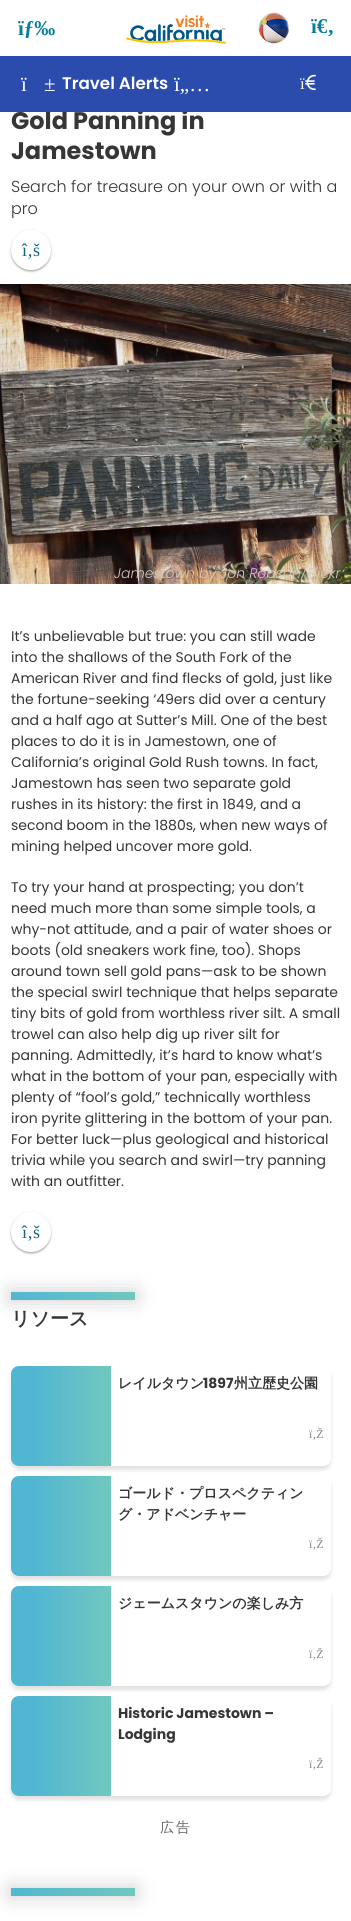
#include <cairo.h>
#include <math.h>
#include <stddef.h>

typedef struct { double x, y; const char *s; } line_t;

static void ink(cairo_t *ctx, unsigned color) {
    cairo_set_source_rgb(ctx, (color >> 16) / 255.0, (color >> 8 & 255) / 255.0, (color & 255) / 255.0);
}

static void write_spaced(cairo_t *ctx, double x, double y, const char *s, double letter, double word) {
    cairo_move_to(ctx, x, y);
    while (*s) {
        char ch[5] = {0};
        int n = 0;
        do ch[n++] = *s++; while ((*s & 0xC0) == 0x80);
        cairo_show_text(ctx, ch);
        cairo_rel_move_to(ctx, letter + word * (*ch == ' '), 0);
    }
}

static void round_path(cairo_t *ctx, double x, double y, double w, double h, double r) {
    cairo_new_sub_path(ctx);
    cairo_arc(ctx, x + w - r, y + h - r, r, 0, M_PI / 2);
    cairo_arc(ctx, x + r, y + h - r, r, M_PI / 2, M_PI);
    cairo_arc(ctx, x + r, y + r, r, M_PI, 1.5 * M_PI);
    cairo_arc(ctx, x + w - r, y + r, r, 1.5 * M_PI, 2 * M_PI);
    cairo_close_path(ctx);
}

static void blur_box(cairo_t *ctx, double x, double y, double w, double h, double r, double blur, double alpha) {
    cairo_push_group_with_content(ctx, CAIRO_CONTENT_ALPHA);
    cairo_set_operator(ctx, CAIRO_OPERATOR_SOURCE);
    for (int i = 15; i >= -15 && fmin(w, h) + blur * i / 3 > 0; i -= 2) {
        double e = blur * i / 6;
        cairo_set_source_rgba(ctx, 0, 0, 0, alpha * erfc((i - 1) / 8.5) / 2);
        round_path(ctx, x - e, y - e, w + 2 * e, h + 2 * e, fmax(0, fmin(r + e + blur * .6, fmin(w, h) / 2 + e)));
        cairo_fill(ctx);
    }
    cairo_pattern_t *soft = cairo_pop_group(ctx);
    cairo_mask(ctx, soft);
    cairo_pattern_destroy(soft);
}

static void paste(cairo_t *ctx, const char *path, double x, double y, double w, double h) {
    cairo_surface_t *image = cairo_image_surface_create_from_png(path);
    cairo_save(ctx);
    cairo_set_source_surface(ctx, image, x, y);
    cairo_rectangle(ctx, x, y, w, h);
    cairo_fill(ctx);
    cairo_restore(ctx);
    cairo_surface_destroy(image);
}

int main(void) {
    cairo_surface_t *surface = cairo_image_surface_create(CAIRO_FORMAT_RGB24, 351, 1921);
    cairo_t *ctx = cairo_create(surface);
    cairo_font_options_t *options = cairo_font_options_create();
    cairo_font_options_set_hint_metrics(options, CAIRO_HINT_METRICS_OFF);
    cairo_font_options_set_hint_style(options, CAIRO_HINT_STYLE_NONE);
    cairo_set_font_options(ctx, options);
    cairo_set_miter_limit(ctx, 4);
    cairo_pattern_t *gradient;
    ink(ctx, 0xFFFFFF);
    cairo_paint(ctx);
    cairo_select_font_face(ctx, "Liberation Serif", CAIRO_FONT_SLANT_NORMAL, CAIRO_FONT_WEIGHT_BOLD);
    cairo_set_font_size(ctx, 21);
    ink(ctx, 0x0B7E9D);
    cairo_move_to(ctx, 18, 35);
    cairo_show_text(ctx, "ïƒ‰");
    paste(ctx, "media/1.png", 126, 15, 100, 29);
    paste(ctx, "media/2.png", 258, 12, 31, 32);
    cairo_move_to(ctx, 311, 33);
    cairo_show_text(ctx, "ï€‚");
    cairo_select_font_face(ctx, "Poppins", CAIRO_FONT_SLANT_NORMAL, CAIRO_FONT_WEIGHT_BOLD);
    cairo_set_font_size(ctx, 24);
    ink(ctx, 0x363636);
    cairo_move_to(ctx, 11, 129);
    cairo_show_text(ctx, "Gold Panning in");
    ink(ctx, 0x2C4CAD);
    cairo_rectangle(ctx, 0, 56, 351, 56);
    cairo_fill(ctx);
    cairo_select_font_face(ctx, "Liberation Serif", CAIRO_FONT_SLANT_NORMAL, CAIRO_FONT_WEIGHT_NORMAL);
    cairo_set_font_size(ctx, 21);
    ink(ctx, 0xFFFFFF);
    cairo_move_to(ctx, 21, 91);
    cairo_show_text(ctx, "ï");
    cairo_move_to(ctx, 44, 91);
    cairo_show_text(ctx, "±");
    cairo_select_font_face(ctx, "Poppins SemiBold", CAIRO_FONT_SLANT_NORMAL, CAIRO_FONT_WEIGHT_NORMAL);
    cairo_set_font_size(ctx, 16.75);
    cairo_move_to(ctx, 62, 89);
    cairo_show_text(ctx, "Travel Alerts");
    cairo_select_font_face(ctx, "Liberation Serif", CAIRO_FONT_SLANT_NORMAL, CAIRO_FONT_WEIGHT_NORMAL);
    cairo_set_font_size(ctx, 21);
    cairo_move_to(ctx, 174, 91);
    cairo_show_text(ctx, "ï„…");
    cairo_set_font_size(ctx, 17);
    cairo_move_to(ctx, 300, 89);
    cairo_show_text(ctx, "ï");
    paste(ctx, "media/3.png", 305, 74, 11, 17);
    cairo_select_font_face(ctx, "Poppins", CAIRO_FONT_SLANT_NORMAL, CAIRO_FONT_WEIGHT_BOLD);
    cairo_set_font_size(ctx, 24);
    ink(ctx, 0x363636);
    cairo_move_to(ctx, 11, 159);
    cairo_show_text(ctx, "Jamestown");
    cairo_select_font_face(ctx, "Poppins Light", CAIRO_FONT_SLANT_NORMAL, CAIRO_FONT_WEIGHT_NORMAL);
    cairo_set_font_size(ctx, 16);
    cairo_move_to(ctx, 11, 192);
    cairo_show_text(ctx, "Search for treasure on your own or with a");
    cairo_move_to(ctx, 11, 214);
    cairo_show_text(ctx, "pro");
    ink(ctx, 0x303030);
    blur_box(ctx, 11, 231, 40, 40, 20, 1.5, 0.2);
    blur_box(ctx, 11, 232, 40, 40, 20, 0.5, 0.12);
    blur_box(ctx, 11, 231, 40, 40, 20, 0.5, 0.14);
    ink(ctx, 0xFFFFFF);
    cairo_arc(ctx, 31, 250, 20, 0, 2 * M_PI);
    cairo_fill(ctx);
    cairo_select_font_face(ctx, "Liberation Serif", CAIRO_FONT_SLANT_NORMAL, CAIRO_FONT_WEIGHT_NORMAL);
    cairo_set_font_size(ctx, 18);
    ink(ctx, 0x0F6780);
    cairo_move_to(ctx, 22, 256);
    cairo_show_text(ctx, "î‚š");
    paste(ctx, "media/4.png", 0, 284, 351, 300);
    cairo_select_font_face(ctx, "Poppins Light", CAIRO_FONT_SLANT_ITALIC, CAIRO_FONT_WEIGHT_NORMAL);
    cairo_set_font_size(ctx, 14);
    ink(ctx, 0xD2C9C1);
    cairo_move_to(ctx, 114, 578);
    cairo_show_text(ctx, "Jamestown by Jon Robson/Flickr");
    cairo_select_font_face(ctx, "Poppins", CAIRO_FONT_SLANT_NORMAL, CAIRO_FONT_WEIGHT_NORMAL);
    ink(ctx, 0x363636);
    {
        static const line_t items[] = {
            {11, 641, "It’s unbelievable but true: you can still wade"},
            {11, 662, "into the shallows of the South Fork of the"},
            {11, 683, "American River and find flecks of gold, just like"},
            {11, 704, "the fortune-seeking ‘49ers did over a century"},
            {11, 725, "and a half ago at Sutter’s Mill. One of the best"},
            {11, 746, "places to do it is in Jamestown, one of"},
            {11, 767, "California’s original Gold Rush towns. In fact,"},
            {11, 788, "Jamestown has seen two separate gold"},
            {11, 809, "rushes in its history: the first in 1849, and a"},
            {11, 830, "second boom in the 1880s, when new ways of"},
            {11, 851, "mining helped uncover more gold."},
            {11, 892, "To try your hand at prospecting; you don’t"},
            {11, 913, "need much more than some simple tools, a"},
            {11, 934, "why-not attitude, and a pair of water shoes or"},
            {11, 955, "boots (old sneakers work fine, too). Shops"},
            {11, 976, "around town sell gold pans—ask to be shown"},
            {11, 997, "the special swirl technique that helps separate"},
            {11, 1018, "tiny bits of gold from worthless river silt. A small"},
            {11, 1039, "trowel can also help dig up river silt for"},
            {11, 1060, "panning. Admittedly, it’s hard to know what’s"},
            {11, 1081, "what in the bottom of your pan, especially with"},
            {11, 1102, "plenty of “fool’s gold,” technically worthless"},
            {11, 1123, "iron pyrite glittering in the bottom of your pan."},
            {11, 1144, "For better luck—plus geological and historical"},
            {11, 1165, "trivia while you search and swirl—try panning"},
            {11, 1186, "with an outfitter."},
        };
        for (size_t i = 0; i < sizeof items / sizeof *items; i++) {
            cairo_move_to(ctx, items[i].x, items[i].y);
            cairo_show_text(ctx, items[i].s);
        }
    }
    ink(ctx, 0x303030);
    blur_box(ctx, 11, 1213, 40, 40, 20, 1.5, 0.2);
    blur_box(ctx, 11, 1214, 40, 40, 20, 0.5, 0.12);
    blur_box(ctx, 11, 1213, 40, 40, 20, 0.5, 0.14);
    ink(ctx, 0xFFFFFF);
    cairo_arc(ctx, 31, 1232, 20, 0, 2 * M_PI);
    cairo_fill(ctx);
    cairo_select_font_face(ctx, "Liberation Serif", CAIRO_FONT_SLANT_NORMAL, CAIRO_FONT_WEIGHT_NORMAL);
    cairo_set_font_size(ctx, 18);
    ink(ctx, 0x0F6780);
    cairo_move_to(ctx, 22, 1238);
    cairo_show_text(ctx, "î‚š");
    ink(ctx, 0x000000);
    blur_box(ctx, 11, 1292, 124, 8, 0, 10, 0.2);
    gradient = cairo_pattern_create_linear(106, 1263, 40, 1329);
    cairo_pattern_add_color_stop_rgba(gradient, 0, 0.443, 0.784, 0.745, 1);
    cairo_pattern_add_color_stop_rgba(gradient, 1, 0.314, 0.714, 0.824, 1);
    cairo_set_source(ctx, gradient);
    cairo_pattern_destroy(gradient);
    cairo_rectangle(ctx, 11, 1292, 124, 8);
    cairo_fill(ctx);
    cairo_select_font_face(ctx, "WenQuanYi Zen Hei", CAIRO_FONT_SLANT_NORMAL, CAIRO_FONT_WEIGHT_BOLD);
    cairo_set_font_size(ctx, 19);
    ink(ctx, 0x363636);
    cairo_move_to(ctx, 11, 1325);
    cairo_show_text(ctx, "リソース");
    cairo_save(ctx);
    cairo_set_fill_rule(ctx, CAIRO_FILL_RULE_EVEN_ODD);
    cairo_new_path(ctx);
    cairo_move_to(ctx, 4, 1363);
    cairo_line_to(ctx, 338, 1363);
    cairo_line_to(ctx, 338, 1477);
    cairo_line_to(ctx, 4, 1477);
    cairo_close_path(ctx);
    cairo_move_to(ctx, 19, 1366);
    cairo_line_to(ctx, 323, 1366);
    cairo_curve_to(ctx, 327.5, 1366, 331, 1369.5, 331, 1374);
    cairo_line_to(ctx, 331, 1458);
    cairo_curve_to(ctx, 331, 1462.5, 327.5, 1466, 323, 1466);
    cairo_line_to(ctx, 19, 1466);
    cairo_curve_to(ctx, 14.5, 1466, 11, 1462.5, 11, 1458);
    cairo_line_to(ctx, 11, 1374);
    cairo_curve_to(ctx, 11, 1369.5, 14.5, 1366, 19, 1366);
    cairo_close_path(ctx);
    cairo_clip(ctx);
    ink(ctx, 0x000000);
    blur_box(ctx, 11, 1370, 320, 100, 8, 2, 0.12);
    cairo_restore(ctx);
    gradient = cairo_pattern_create_linear(11, 1416, 111, 1416);
    cairo_pattern_add_color_stop_rgba(gradient, 0.23, 0.318, 0.714, 0.824, 1);
    cairo_pattern_add_color_stop_rgba(gradient, 1, 0.443, 0.784, 0.749, 1);
    cairo_set_source(ctx, gradient);
    cairo_pattern_destroy(gradient);
    cairo_new_path(ctx);
    cairo_move_to(ctx, 19, 1366);
    cairo_line_to(ctx, 111, 1366);
    cairo_line_to(ctx, 111, 1466);
    cairo_line_to(ctx, 19, 1466);
    cairo_curve_to(ctx, 14.5, 1466, 11, 1462.5, 11, 1458);
    cairo_line_to(ctx, 11, 1374);
    cairo_curve_to(ctx, 11, 1369.5, 14.5, 1366, 19, 1366);
    cairo_close_path(ctx);
    cairo_fill(ctx);
    cairo_set_font_size(ctx, 14);
    ink(ctx, 0x363636);
    cairo_move_to(ctx, 118, 1388);
    cairo_show_text(ctx, "レイルタウン");
    cairo_select_font_face(ctx, "Poppins", CAIRO_FONT_SLANT_NORMAL, CAIRO_FONT_WEIGHT_BOLD);
    cairo_move_to(ctx, 203, 1388);
    cairo_show_text(ctx, "1897");
    cairo_select_font_face(ctx, "WenQuanYi Zen Hei", CAIRO_FONT_SLANT_NORMAL, CAIRO_FONT_WEIGHT_BOLD);
    cairo_move_to(ctx, 234, 1388);
    cairo_show_text(ctx, "州立歴史公園");
    cairo_select_font_face(ctx, "Liberation Serif", CAIRO_FONT_SLANT_NORMAL, CAIRO_FONT_WEIGHT_NORMAL);
    cairo_set_font_size(ctx, 12);
    ink(ctx, 0x878787);
    cairo_move_to(ctx, 309, 1438);
    cairo_show_text(ctx, "ï‚Ž");
    cairo_save(ctx);
    cairo_set_fill_rule(ctx, CAIRO_FILL_RULE_EVEN_ODD);
    cairo_new_path(ctx);
    cairo_move_to(ctx, 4, 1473);
    cairo_line_to(ctx, 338, 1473);
    cairo_line_to(ctx, 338, 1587);
    cairo_line_to(ctx, 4, 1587);
    cairo_close_path(ctx);
    cairo_move_to(ctx, 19, 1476);
    cairo_line_to(ctx, 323, 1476);
    cairo_curve_to(ctx, 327.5, 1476, 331, 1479.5, 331, 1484);
    cairo_line_to(ctx, 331, 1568);
    cairo_curve_to(ctx, 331, 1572.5, 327.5, 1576, 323, 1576);
    cairo_line_to(ctx, 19, 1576);
    cairo_curve_to(ctx, 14.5, 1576, 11, 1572.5, 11, 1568);
    cairo_line_to(ctx, 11, 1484);
    cairo_curve_to(ctx, 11, 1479.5, 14.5, 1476, 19, 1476);
    cairo_close_path(ctx);
    cairo_clip(ctx);
    ink(ctx, 0x000000);
    blur_box(ctx, 11, 1480, 320, 100, 8, 2, 0.12);
    cairo_restore(ctx);
    gradient = cairo_pattern_create_linear(11, 1526, 111, 1526);
    cairo_pattern_add_color_stop_rgba(gradient, 0.23, 0.318, 0.714, 0.824, 1);
    cairo_pattern_add_color_stop_rgba(gradient, 1, 0.443, 0.784, 0.749, 1);
    cairo_set_source(ctx, gradient);
    cairo_pattern_destroy(gradient);
    cairo_new_path(ctx);
    cairo_move_to(ctx, 19, 1476);
    cairo_line_to(ctx, 111, 1476);
    cairo_line_to(ctx, 111, 1576);
    cairo_line_to(ctx, 19, 1576);
    cairo_curve_to(ctx, 14.5, 1576, 11, 1572.5, 11, 1568);
    cairo_line_to(ctx, 11, 1484);
    cairo_curve_to(ctx, 11, 1479.5, 14.5, 1476, 19, 1476);
    cairo_close_path(ctx);
    cairo_fill(ctx);
    cairo_select_font_face(ctx, "WenQuanYi Zen Hei", CAIRO_FONT_SLANT_NORMAL, CAIRO_FONT_WEIGHT_BOLD);
    cairo_set_font_size(ctx, 14);
    ink(ctx, 0x363636);
    cairo_move_to(ctx, 118, 1498);
    cairo_show_text(ctx, "ゴールド・プロスペクティン");
    cairo_move_to(ctx, 118, 1519);
    cairo_show_text(ctx, "グ・アドベンチャー");
    cairo_select_font_face(ctx, "Liberation Serif", CAIRO_FONT_SLANT_NORMAL, CAIRO_FONT_WEIGHT_NORMAL);
    cairo_set_font_size(ctx, 12);
    ink(ctx, 0x878787);
    cairo_move_to(ctx, 309, 1548);
    cairo_show_text(ctx, "ï‚Ž");
    cairo_save(ctx);
    cairo_set_fill_rule(ctx, CAIRO_FILL_RULE_EVEN_ODD);
    cairo_new_path(ctx);
    cairo_move_to(ctx, 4, 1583);
    cairo_line_to(ctx, 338, 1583);
    cairo_line_to(ctx, 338, 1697);
    cairo_line_to(ctx, 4, 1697);
    cairo_close_path(ctx);
    cairo_move_to(ctx, 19, 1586);
    cairo_line_to(ctx, 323, 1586);
    cairo_curve_to(ctx, 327.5, 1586, 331, 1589.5, 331, 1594);
    cairo_line_to(ctx, 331, 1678);
    cairo_curve_to(ctx, 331, 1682.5, 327.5, 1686, 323, 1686);
    cairo_line_to(ctx, 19, 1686);
    cairo_curve_to(ctx, 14.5, 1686, 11, 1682.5, 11, 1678);
    cairo_line_to(ctx, 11, 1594);
    cairo_curve_to(ctx, 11, 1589.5, 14.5, 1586, 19, 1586);
    cairo_close_path(ctx);
    cairo_clip(ctx);
    ink(ctx, 0x000000);
    blur_box(ctx, 11, 1590, 320, 100, 8, 2, 0.12);
    cairo_restore(ctx);
    gradient = cairo_pattern_create_linear(11, 1636, 111, 1636);
    cairo_pattern_add_color_stop_rgba(gradient, 0.23, 0.318, 0.714, 0.824, 1);
    cairo_pattern_add_color_stop_rgba(gradient, 1, 0.443, 0.784, 0.749, 1);
    cairo_set_source(ctx, gradient);
    cairo_pattern_destroy(gradient);
    cairo_new_path(ctx);
    cairo_move_to(ctx, 19, 1586);
    cairo_line_to(ctx, 111, 1586);
    cairo_line_to(ctx, 111, 1686);
    cairo_line_to(ctx, 19, 1686);
    cairo_curve_to(ctx, 14.5, 1686, 11, 1682.5, 11, 1678);
    cairo_line_to(ctx, 11, 1594);
    cairo_curve_to(ctx, 11, 1589.5, 14.5, 1586, 19, 1586);
    cairo_close_path(ctx);
    cairo_fill(ctx);
    cairo_select_font_face(ctx, "WenQuanYi Zen Hei", CAIRO_FONT_SLANT_NORMAL, CAIRO_FONT_WEIGHT_BOLD);
    cairo_set_font_size(ctx, 14);
    ink(ctx, 0x363636);
    cairo_move_to(ctx, 118, 1608);
    cairo_show_text(ctx, "ジェームスタウンの楽しみ方");
    cairo_select_font_face(ctx, "Liberation Serif", CAIRO_FONT_SLANT_NORMAL, CAIRO_FONT_WEIGHT_NORMAL);
    cairo_set_font_size(ctx, 12);
    ink(ctx, 0x878787);
    cairo_move_to(ctx, 309, 1658);
    cairo_show_text(ctx, "ï‚Ž");
    cairo_save(ctx);
    cairo_set_fill_rule(ctx, CAIRO_FILL_RULE_EVEN_ODD);
    cairo_new_path(ctx);
    cairo_move_to(ctx, 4, 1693);
    cairo_line_to(ctx, 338, 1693);
    cairo_line_to(ctx, 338, 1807);
    cairo_line_to(ctx, 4, 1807);
    cairo_close_path(ctx);
    cairo_move_to(ctx, 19, 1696);
    cairo_line_to(ctx, 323, 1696);
    cairo_curve_to(ctx, 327.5, 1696, 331, 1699.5, 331, 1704);
    cairo_line_to(ctx, 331, 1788);
    cairo_curve_to(ctx, 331, 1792.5, 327.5, 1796, 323, 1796);
    cairo_line_to(ctx, 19, 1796);
    cairo_curve_to(ctx, 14.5, 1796, 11, 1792.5, 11, 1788);
    cairo_line_to(ctx, 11, 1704);
    cairo_curve_to(ctx, 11, 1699.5, 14.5, 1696, 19, 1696);
    cairo_close_path(ctx);
    cairo_clip(ctx);
    ink(ctx, 0x000000);
    blur_box(ctx, 11, 1700, 320, 100, 8, 2, 0.12);
    cairo_restore(ctx);
    gradient = cairo_pattern_create_linear(11, 1746, 111, 1746);
    cairo_pattern_add_color_stop_rgba(gradient, 0.23, 0.318, 0.714, 0.824, 1);
    cairo_pattern_add_color_stop_rgba(gradient, 1, 0.443, 0.784, 0.749, 1);
    cairo_set_source(ctx, gradient);
    cairo_pattern_destroy(gradient);
    cairo_new_path(ctx);
    cairo_move_to(ctx, 19, 1696);
    cairo_line_to(ctx, 111, 1696);
    cairo_line_to(ctx, 111, 1796);
    cairo_line_to(ctx, 19, 1796);
    cairo_curve_to(ctx, 14.5, 1796, 11, 1792.5, 11, 1788);
    cairo_line_to(ctx, 11, 1704);
    cairo_curve_to(ctx, 11, 1699.5, 14.5, 1696, 19, 1696);
    cairo_close_path(ctx);
    cairo_fill(ctx);
    cairo_select_font_face(ctx, "Poppins", CAIRO_FONT_SLANT_NORMAL, CAIRO_FONT_WEIGHT_BOLD);
    cairo_set_font_size(ctx, 14);
    ink(ctx, 0x363636);
    cairo_move_to(ctx, 118, 1718);
    cairo_show_text(ctx, "Historic Jamestown –");
    cairo_move_to(ctx, 118, 1739);
    cairo_show_text(ctx, "Lodging");
    cairo_select_font_face(ctx, "Liberation Serif", CAIRO_FONT_SLANT_NORMAL, CAIRO_FONT_WEIGHT_NORMAL);
    cairo_set_font_size(ctx, 12);
    ink(ctx, 0x878787);
    cairo_move_to(ctx, 309, 1768);
    cairo_show_text(ctx, "ï‚Ž");
    cairo_select_font_face(ctx, "WenQuanYi Zen Hei Medium", CAIRO_FONT_SLANT_NORMAL, CAIRO_FONT_WEIGHT_NORMAL);
    cairo_set_font_size(ctx, 14);
    ink(ctx, 0x666666);
    write_spaced(ctx, 160, 1832, "広告", 2, 0);
    ink(ctx, 0x000000);
    blur_box(ctx, 11, 1888, 124, 8, 0, 10, 0.2);
    gradient = cairo_pattern_create_linear(106, 1859, 40, 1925);
    cairo_pattern_add_color_stop_rgba(gradient, 0, 0.443, 0.784, 0.745, 1);
    cairo_pattern_add_color_stop_rgba(gradient, 1, 0.314, 0.714, 0.824, 1);
    cairo_set_source(ctx, gradient);
    cairo_pattern_destroy(gradient);
    cairo_rectangle(ctx, 11, 1888, 124, 8);
    cairo_fill(ctx);
    cairo_surface_write_to_png(surface, "image.png");
    cairo_font_options_destroy(options);
    cairo_destroy(ctx);
    cairo_surface_destroy(surface);
    return 0;
}
